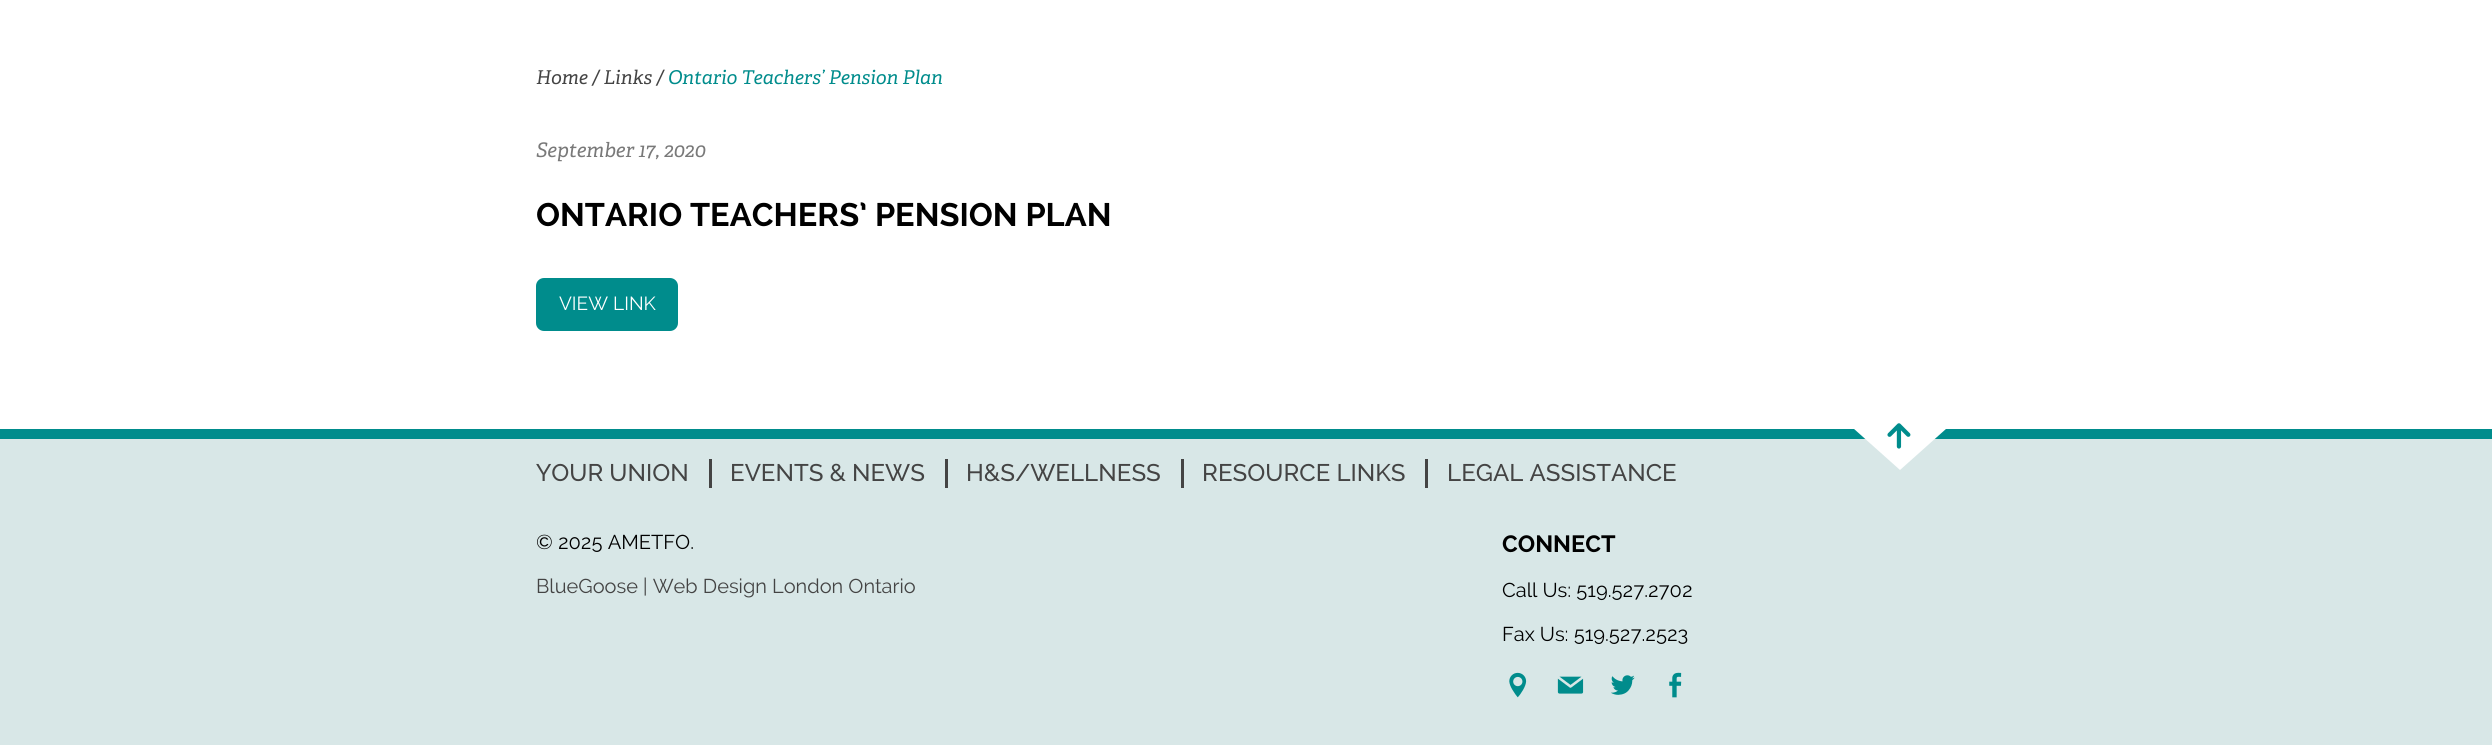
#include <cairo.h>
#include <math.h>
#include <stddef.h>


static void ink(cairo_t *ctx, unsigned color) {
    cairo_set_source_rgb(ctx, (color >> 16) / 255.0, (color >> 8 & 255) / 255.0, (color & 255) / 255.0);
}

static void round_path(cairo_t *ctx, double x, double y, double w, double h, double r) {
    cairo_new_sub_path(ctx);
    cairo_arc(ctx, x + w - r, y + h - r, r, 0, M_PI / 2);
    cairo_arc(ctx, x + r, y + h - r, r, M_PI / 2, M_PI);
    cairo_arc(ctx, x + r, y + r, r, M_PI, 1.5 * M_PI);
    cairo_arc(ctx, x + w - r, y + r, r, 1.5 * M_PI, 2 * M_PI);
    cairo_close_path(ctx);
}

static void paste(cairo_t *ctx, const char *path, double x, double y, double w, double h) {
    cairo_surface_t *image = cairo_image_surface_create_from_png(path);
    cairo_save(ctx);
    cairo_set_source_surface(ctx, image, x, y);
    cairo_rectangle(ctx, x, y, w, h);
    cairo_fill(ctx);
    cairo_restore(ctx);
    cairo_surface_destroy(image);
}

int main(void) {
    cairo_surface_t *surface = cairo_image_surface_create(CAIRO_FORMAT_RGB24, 2492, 745);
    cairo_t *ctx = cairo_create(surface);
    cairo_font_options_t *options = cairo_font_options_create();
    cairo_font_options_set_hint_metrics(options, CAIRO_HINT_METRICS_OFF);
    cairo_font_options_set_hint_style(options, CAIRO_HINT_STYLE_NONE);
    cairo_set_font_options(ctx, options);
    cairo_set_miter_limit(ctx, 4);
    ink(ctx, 0xFFFFFF);
    cairo_paint(ctx);
    cairo_select_font_face(ctx, "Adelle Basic", CAIRO_FONT_SLANT_ITALIC, CAIRO_FONT_WEIGHT_NORMAL);
    cairo_set_font_size(ctx, 19);
    ink(ctx, 0x444444);
    cairo_move_to(ctx, 536, 84);
    cairo_show_text(ctx, "Home / Links /");
    ink(ctx, 0x008C8C);
    cairo_move_to(ctx, 668, 84);
    cairo_show_text(ctx, "Ontario Teachers’ Pension Plan");
    cairo_set_font_size(ctx, 20);
    ink(ctx, 0x797979);
    cairo_move_to(ctx, 536, 157);
    cairo_show_text(ctx, "September 17, 2020");
    cairo_select_font_face(ctx, "Raleway", CAIRO_FONT_SLANT_NORMAL, CAIRO_FONT_WEIGHT_BOLD);
    cairo_set_font_size(ctx, 32.5);
    ink(ctx, 0x000000);
    cairo_move_to(ctx, 536, 226);
    cairo_show_text(ctx, "ONTARIO TEACHERS’ PENSION PLAN");
    ink(ctx, 0x008C8C);
    round_path(ctx, 536, 278, 142, 53, 8);
    cairo_fill(ctx);
    cairo_select_font_face(ctx, "Raleway", CAIRO_FONT_SLANT_NORMAL, CAIRO_FONT_WEIGHT_NORMAL);
    cairo_set_font_size(ctx, 19);
    ink(ctx, 0xFFFFFF);
    cairo_move_to(ctx, 559, 310);
    cairo_show_text(ctx, "VIEW LINK");
    ink(ctx, 0xD8E7E7);
    cairo_rectangle(ctx, 0, 439, 2492, 306);
    cairo_fill(ctx);
    ink(ctx, 0x008C8C);
    cairo_rectangle(ctx, 0, 429, 2492, 10);
    cairo_fill(ctx);
    ink(ctx, 0xFFFFFF);
    cairo_new_path(ctx);
    cairo_move_to(ctx, 1844, 420);
    cairo_line_to(ctx, 1956, 420);
    cairo_line_to(ctx, 1900, 470);
    cairo_close_path(ctx);
    cairo_fill(ctx);
    paste(ctx, "media/1.png", 1887, 423, 24, 26);
    ink(ctx, 0x444444);
    cairo_rectangle(ctx, 709, 459, 3, 29);
    cairo_fill(ctx);
    cairo_select_font_face(ctx, "Raleway Medium", CAIRO_FONT_SLANT_NORMAL, CAIRO_FONT_WEIGHT_NORMAL);
    cairo_set_font_size(ctx, 24);
    cairo_move_to(ctx, 536, 481);
    cairo_show_text(ctx, "YOUR UNION");
    cairo_rectangle(ctx, 945, 459, 3, 29);
    cairo_fill(ctx);
    cairo_move_to(ctx, 730, 481);
    cairo_show_text(ctx, "EVENTS & NEWS");
    cairo_rectangle(ctx, 1181, 459, 3, 29);
    cairo_fill(ctx);
    cairo_move_to(ctx, 966, 481);
    cairo_show_text(ctx, "H&S/WELLNESS");
    cairo_rectangle(ctx, 1425, 459, 3, 29);
    cairo_fill(ctx);
    cairo_move_to(ctx, 1202, 481);
    cairo_show_text(ctx, "RESOURCE LINKS");
    cairo_move_to(ctx, 1447, 481);
    cairo_show_text(ctx, "LEGAL ASSISTANCE");
    cairo_select_font_face(ctx, "Raleway", CAIRO_FONT_SLANT_NORMAL, CAIRO_FONT_WEIGHT_BOLD);
    cairo_set_font_size(ctx, 23.5);
    ink(ctx, 0x000000);
    cairo_move_to(ctx, 1502, 552);
    cairo_show_text(ctx, "CONNECT");
    cairo_select_font_face(ctx, "Raleway", CAIRO_FONT_SLANT_NORMAL, CAIRO_FONT_WEIGHT_NORMAL);
    cairo_set_font_size(ctx, 20);
    cairo_move_to(ctx, 1502, 597);
    cairo_show_text(ctx, "Call Us: 519.527.2702");
    cairo_move_to(ctx, 1502, 641);
    cairo_show_text(ctx, "Fax Us: 519.527.2523");
    paste(ctx, "media/2.png", 1509, 672, 18, 26);
    paste(ctx, "media/3.png", 1557, 676, 27, 18);
    paste(ctx, "media/4.png", 1611, 675, 24, 20);
    paste(ctx, "media/5.png", 1669, 672, 13, 26);
    cairo_move_to(ctx, 536, 549);
    cairo_show_text(ctx, "© 2025 AMETFO.");
    ink(ctx, 0x444444);
    cairo_move_to(ctx, 536, 593);
    cairo_show_text(ctx, "BlueGoose | Web Design London Ontario");
    cairo_surface_write_to_png(surface, "image.png");
    cairo_font_options_destroy(options);
    cairo_destroy(ctx);
    cairo_surface_destroy(surface);
    return 0;
}
